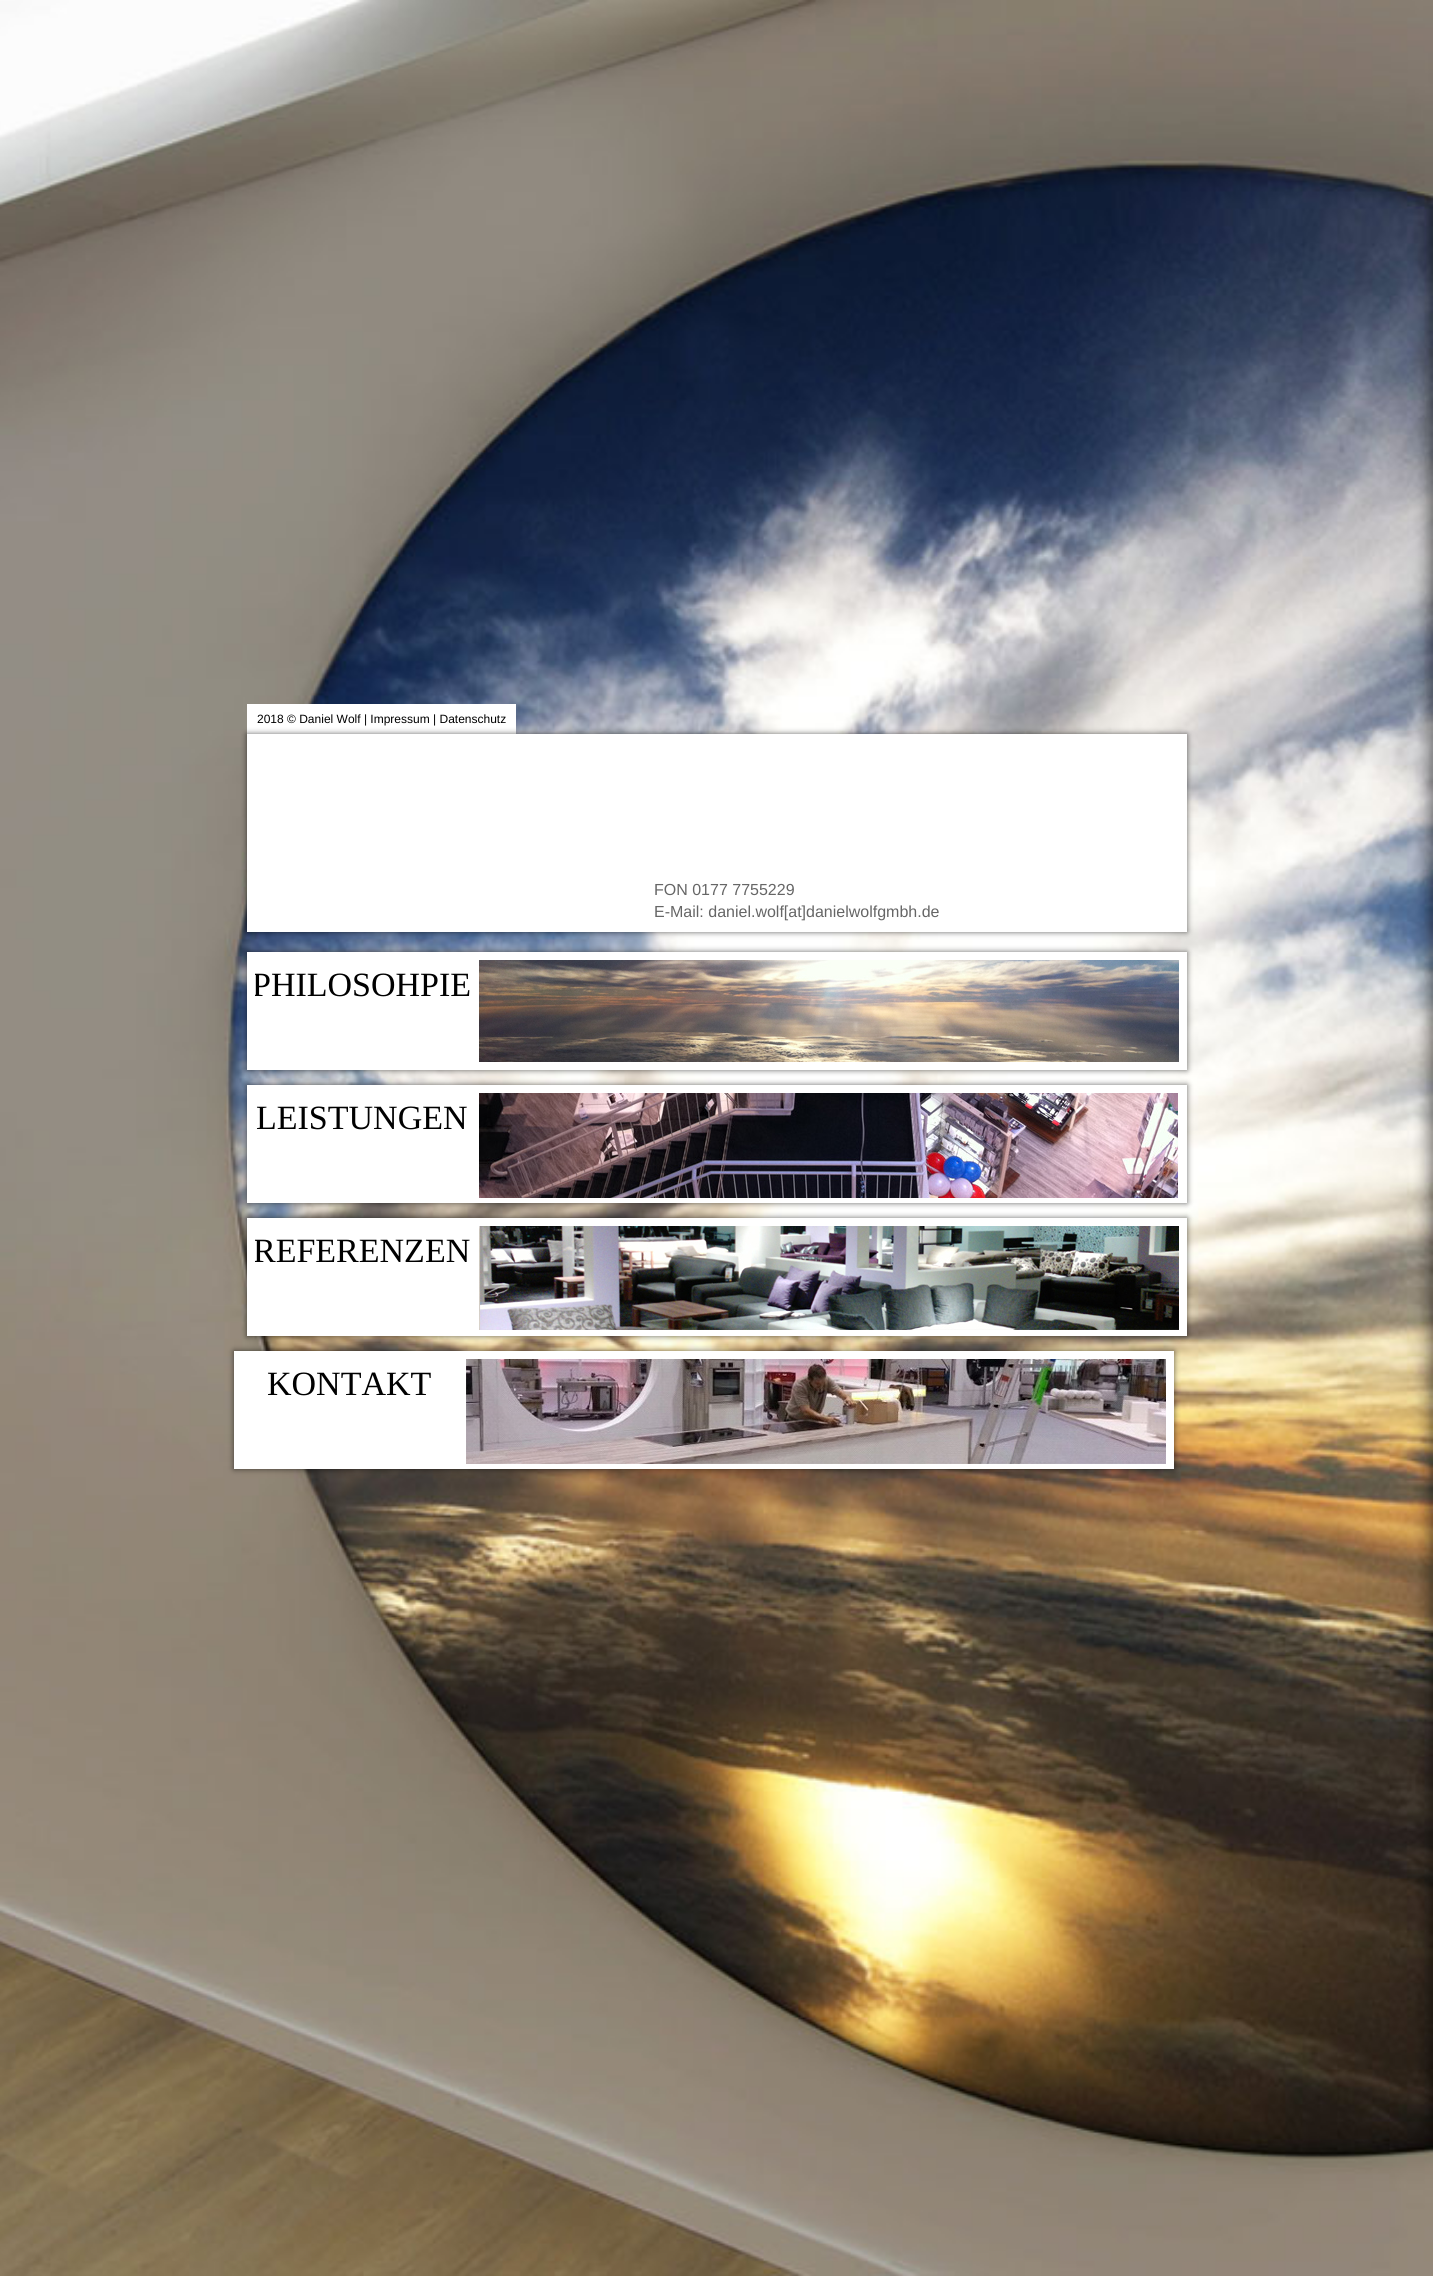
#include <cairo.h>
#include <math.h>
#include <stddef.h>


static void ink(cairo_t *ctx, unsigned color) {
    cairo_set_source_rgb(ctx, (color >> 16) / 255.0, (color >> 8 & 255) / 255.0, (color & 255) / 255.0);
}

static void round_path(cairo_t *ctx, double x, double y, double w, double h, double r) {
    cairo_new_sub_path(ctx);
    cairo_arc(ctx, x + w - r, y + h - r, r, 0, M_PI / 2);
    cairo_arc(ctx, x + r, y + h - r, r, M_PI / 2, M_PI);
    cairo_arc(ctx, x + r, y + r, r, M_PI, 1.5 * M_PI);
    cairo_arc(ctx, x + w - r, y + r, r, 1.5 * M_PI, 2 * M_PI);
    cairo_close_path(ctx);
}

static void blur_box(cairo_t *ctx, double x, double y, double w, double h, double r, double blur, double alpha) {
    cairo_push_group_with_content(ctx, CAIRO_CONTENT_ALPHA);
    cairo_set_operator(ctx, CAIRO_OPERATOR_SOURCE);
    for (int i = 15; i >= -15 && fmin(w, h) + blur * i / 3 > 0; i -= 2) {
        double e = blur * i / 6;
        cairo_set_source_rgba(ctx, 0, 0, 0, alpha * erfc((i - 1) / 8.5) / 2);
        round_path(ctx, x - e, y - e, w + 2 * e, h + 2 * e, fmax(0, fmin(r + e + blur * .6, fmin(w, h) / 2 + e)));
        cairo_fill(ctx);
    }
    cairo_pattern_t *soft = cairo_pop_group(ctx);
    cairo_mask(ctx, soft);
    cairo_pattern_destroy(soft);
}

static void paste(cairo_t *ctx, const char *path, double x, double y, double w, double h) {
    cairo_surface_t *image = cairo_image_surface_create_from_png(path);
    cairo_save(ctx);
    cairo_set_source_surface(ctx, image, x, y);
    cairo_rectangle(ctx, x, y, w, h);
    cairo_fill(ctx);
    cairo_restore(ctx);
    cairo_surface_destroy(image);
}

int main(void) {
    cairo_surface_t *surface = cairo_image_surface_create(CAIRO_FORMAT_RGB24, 1433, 2276);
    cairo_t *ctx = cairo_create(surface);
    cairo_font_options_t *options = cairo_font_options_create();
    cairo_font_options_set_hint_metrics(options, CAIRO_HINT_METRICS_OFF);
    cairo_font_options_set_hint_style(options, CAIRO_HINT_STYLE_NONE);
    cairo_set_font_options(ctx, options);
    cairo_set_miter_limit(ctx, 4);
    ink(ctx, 0xFFFFFF);
    cairo_paint(ctx);
    paste(ctx, "media/1.png", 0, 0, 1433, 2276);
    ink(ctx, 0xFFFFFF);
    cairo_rectangle(ctx, 247, 704, 269, 30);
    cairo_fill(ctx);
    cairo_select_font_face(ctx, "Liberation Sans", CAIRO_FONT_SLANT_NORMAL, CAIRO_FONT_WEIGHT_NORMAL);
    cairo_set_font_size(ctx, 12);
    ink(ctx, 0x000000);
    cairo_move_to(ctx, 257, 723);
    cairo_show_text(ctx, "2018 © Daniel Wolf | Impressum | Datenschutz");
    ink(ctx, 0x000000);
    blur_box(ctx, 247, 734, 940, 198, 0, 3, 0.6);
    ink(ctx, 0xFFFFFF);
    cairo_rectangle(ctx, 247, 734, 940, 198);
    cairo_fill(ctx);
    cairo_set_font_size(ctx, 16);
    ink(ctx, 0x666666);
    cairo_move_to(ctx, 654, 895);
    cairo_show_text(ctx, "FON 0177 7755229");
    cairo_move_to(ctx, 654, 917);
    cairo_show_text(ctx, "E-Mail: daniel.wolf[at]danielwolfgmbh.de");
    ink(ctx, 0x000000);
    blur_box(ctx, 247, 952, 940, 118, 0, 3, 0.6);
    ink(ctx, 0xFFFFFF);
    cairo_rectangle(ctx, 247, 952, 940, 118);
    cairo_fill(ctx);
    cairo_save(ctx);
    cairo_rectangle(ctx, 255, 960, 224, 105);
    cairo_clip(ctx);
    cairo_select_font_face(ctx, "Liberation Serif", CAIRO_FONT_SLANT_NORMAL, CAIRO_FONT_WEIGHT_NORMAL);
    cairo_set_font_size(ctx, 34);
    ink(ctx, 0x000000);
    cairo_move_to(ctx, 252, 996);
    cairo_show_text(ctx, "PHILOSOHPIE");
    cairo_restore(ctx);
    paste(ctx, "media/2.png", 479, 960, 700, 102);
    ink(ctx, 0x000000);
    blur_box(ctx, 247, 1085, 940, 118, 0, 3, 0.6);
    ink(ctx, 0xFFFFFF);
    cairo_rectangle(ctx, 247, 1085, 940, 118);
    cairo_fill(ctx);
    cairo_select_font_face(ctx, "Liberation Serif", CAIRO_FONT_SLANT_NORMAL, CAIRO_FONT_WEIGHT_NORMAL);
    cairo_set_font_size(ctx, 34);
    ink(ctx, 0x000000);
    cairo_move_to(ctx, 256, 1129);
    cairo_show_text(ctx, "LEISTUNGEN");
    paste(ctx, "media/3.png", 479, 1093, 699, 105);
    ink(ctx, 0x000000);
    blur_box(ctx, 247, 1218, 940, 118, 0, 3, 0.6);
    ink(ctx, 0xFFFFFF);
    cairo_rectangle(ctx, 247, 1218, 940, 118);
    cairo_fill(ctx);
    cairo_save(ctx);
    cairo_rectangle(ctx, 255, 1226, 224, 105);
    cairo_clip(ctx);
    ink(ctx, 0x000000);
    cairo_move_to(ctx, 253, 1262);
    cairo_show_text(ctx, "REFERENZEN");
    cairo_restore(ctx);
    paste(ctx, "media/4.png", 479, 1226, 700, 104);
    ink(ctx, 0x000000);
    blur_box(ctx, 234, 1351, 940, 118, 0, 3, 0.6);
    ink(ctx, 0xFFFFFF);
    cairo_rectangle(ctx, 234, 1351, 940, 118);
    cairo_fill(ctx);
    ink(ctx, 0x000000);
    cairo_move_to(ctx, 267, 1395);
    cairo_show_text(ctx, "KONTAKT");
    paste(ctx, "media/5.png", 466, 1359, 700, 105);
    cairo_surface_write_to_png(surface, "image.png");
    cairo_font_options_destroy(options);
    cairo_destroy(ctx);
    cairo_surface_destroy(surface);
    return 0;
}
